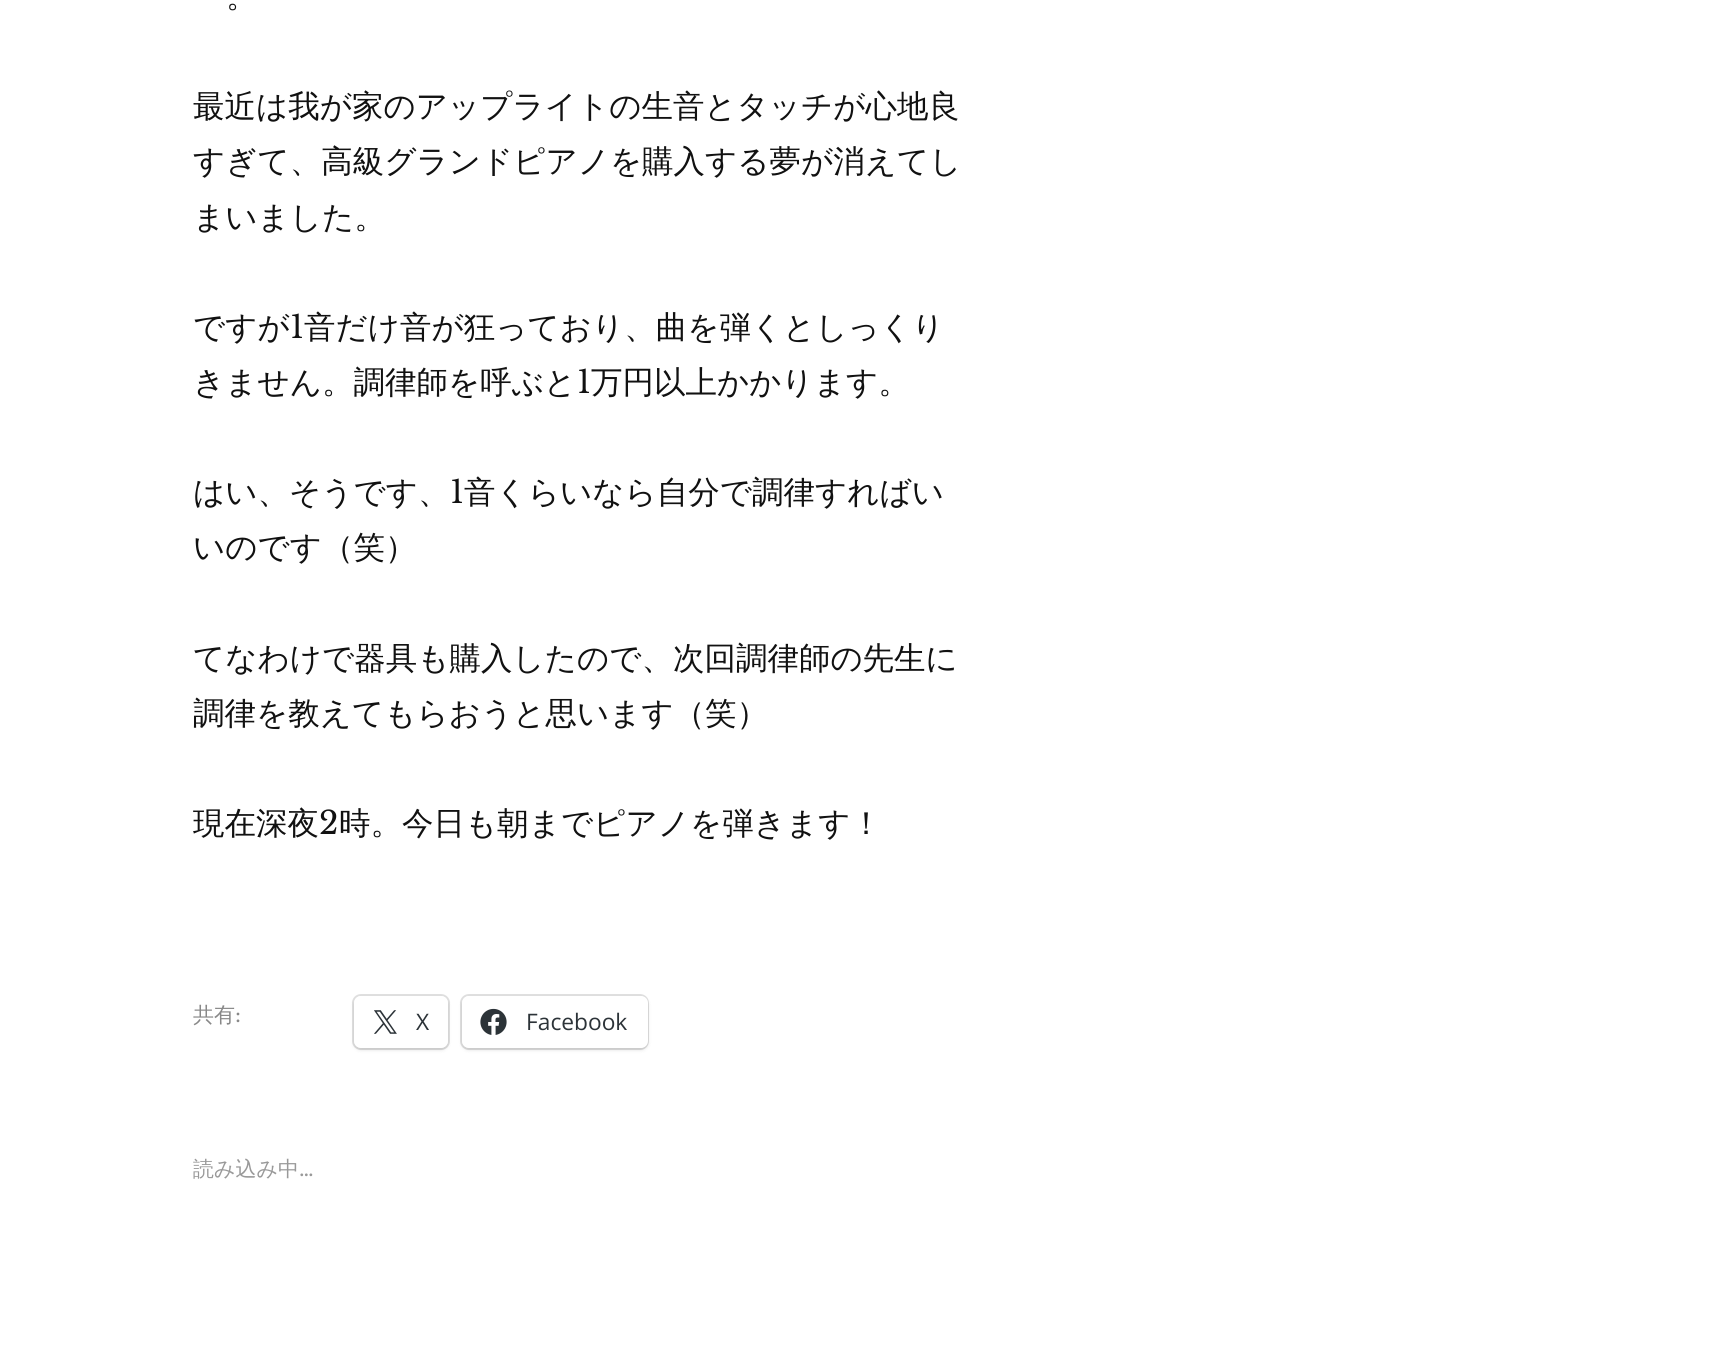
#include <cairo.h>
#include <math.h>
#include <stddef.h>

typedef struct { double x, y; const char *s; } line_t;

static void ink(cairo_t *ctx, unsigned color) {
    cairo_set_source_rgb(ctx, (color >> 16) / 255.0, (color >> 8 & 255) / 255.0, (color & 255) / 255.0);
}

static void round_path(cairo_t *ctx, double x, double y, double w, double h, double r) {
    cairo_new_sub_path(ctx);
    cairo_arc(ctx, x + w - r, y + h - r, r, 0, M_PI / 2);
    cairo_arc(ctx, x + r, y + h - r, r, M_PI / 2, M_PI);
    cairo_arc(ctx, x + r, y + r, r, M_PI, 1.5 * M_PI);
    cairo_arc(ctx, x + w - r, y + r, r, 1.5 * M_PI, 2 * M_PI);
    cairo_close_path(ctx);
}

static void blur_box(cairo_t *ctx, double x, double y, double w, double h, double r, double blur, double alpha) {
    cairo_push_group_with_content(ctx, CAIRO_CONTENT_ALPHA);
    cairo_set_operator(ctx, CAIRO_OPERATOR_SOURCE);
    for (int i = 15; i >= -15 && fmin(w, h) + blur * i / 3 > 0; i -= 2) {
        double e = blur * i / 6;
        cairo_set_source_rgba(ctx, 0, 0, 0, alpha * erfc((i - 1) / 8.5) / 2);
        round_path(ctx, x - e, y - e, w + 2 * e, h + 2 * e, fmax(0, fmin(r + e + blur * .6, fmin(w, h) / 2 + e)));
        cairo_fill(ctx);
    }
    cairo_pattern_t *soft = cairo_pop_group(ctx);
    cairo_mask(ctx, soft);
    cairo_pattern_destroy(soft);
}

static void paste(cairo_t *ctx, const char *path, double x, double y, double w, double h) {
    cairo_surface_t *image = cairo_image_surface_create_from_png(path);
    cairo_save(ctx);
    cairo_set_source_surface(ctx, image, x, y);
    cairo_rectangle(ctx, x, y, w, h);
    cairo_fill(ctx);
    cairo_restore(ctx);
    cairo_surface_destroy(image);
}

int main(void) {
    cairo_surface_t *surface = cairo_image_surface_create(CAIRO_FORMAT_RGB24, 1715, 1356);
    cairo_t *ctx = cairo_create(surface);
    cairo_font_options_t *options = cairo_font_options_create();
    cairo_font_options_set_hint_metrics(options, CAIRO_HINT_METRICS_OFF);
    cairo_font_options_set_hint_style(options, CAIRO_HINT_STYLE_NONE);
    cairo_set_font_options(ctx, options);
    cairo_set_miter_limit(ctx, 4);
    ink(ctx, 0xFFFFFF);
    cairo_paint(ctx);
    cairo_select_font_face(ctx, "WenQuanYi Zen Hei Medium", CAIRO_FONT_SLANT_NORMAL, CAIRO_FONT_WEIGHT_NORMAL);
    cairo_set_font_size(ctx, 31.5);
    ink(ctx, 0x111111);
    {
        static const line_t items[] = {
            {226, 7, "。"},
            {193, 117, "最近は我が家のアップライトの生音とタッチが心地良"},
            {193, 172, "すぎて、高級グランドピアノを購入する夢が消えてし"},
            {193, 228, "まいました。"},
            {193, 338, "ですが"},
        };
        for (size_t i = 0; i < sizeof items / sizeof *items; i++) {
            cairo_move_to(ctx, items[i].x, items[i].y);
            cairo_show_text(ctx, items[i].s);
        }
    }
    cairo_select_font_face(ctx, "Libre Baskerville", CAIRO_FONT_SLANT_NORMAL, CAIRO_FONT_WEIGHT_NORMAL);
    cairo_move_to(ctx, 290, 338);
    cairo_show_text(ctx, "1");
    cairo_select_font_face(ctx, "WenQuanYi Zen Hei Medium", CAIRO_FONT_SLANT_NORMAL, CAIRO_FONT_WEIGHT_NORMAL);
    cairo_move_to(ctx, 304, 338);
    cairo_show_text(ctx, "音だけ音が狂っており、曲を弾くとしっくり");
    cairo_move_to(ctx, 193, 393);
    cairo_show_text(ctx, "きません。調律師を呼ぶと");
    cairo_select_font_face(ctx, "Libre Baskerville", CAIRO_FONT_SLANT_NORMAL, CAIRO_FONT_WEIGHT_NORMAL);
    cairo_move_to(ctx, 577, 393);
    cairo_show_text(ctx, "1");
    cairo_select_font_face(ctx, "WenQuanYi Zen Hei Medium", CAIRO_FONT_SLANT_NORMAL, CAIRO_FONT_WEIGHT_NORMAL);
    cairo_move_to(ctx, 591, 393);
    cairo_show_text(ctx, "万円以上かかります。");
    cairo_move_to(ctx, 193, 503);
    cairo_show_text(ctx, "はい、そうです、");
    cairo_select_font_face(ctx, "Libre Baskerville", CAIRO_FONT_SLANT_NORMAL, CAIRO_FONT_WEIGHT_NORMAL);
    cairo_move_to(ctx, 450, 503);
    cairo_show_text(ctx, "1");
    cairo_select_font_face(ctx, "WenQuanYi Zen Hei Medium", CAIRO_FONT_SLANT_NORMAL, CAIRO_FONT_WEIGHT_NORMAL);
    {
        static const line_t items[] = {
            {464, 503, "音くらいなら自分で調律すればい"},
            {193, 558, "いのです（笑）"},
            {193, 669, "てなわけで器具も購入したので、次回調律師の先生に"},
            {193, 724, "調律を教えてもらおうと思います（笑）"},
            {193, 834, "現在深夜"},
        };
        for (size_t i = 0; i < sizeof items / sizeof *items; i++) {
            cairo_move_to(ctx, items[i].x, items[i].y);
            cairo_show_text(ctx, items[i].s);
        }
    }
    cairo_select_font_face(ctx, "Libre Baskerville", CAIRO_FONT_SLANT_NORMAL, CAIRO_FONT_WEIGHT_NORMAL);
    cairo_move_to(ctx, 319, 834);
    cairo_show_text(ctx, "2");
    cairo_select_font_face(ctx, "WenQuanYi Zen Hei Medium", CAIRO_FONT_SLANT_NORMAL, CAIRO_FONT_WEIGHT_NORMAL);
    cairo_move_to(ctx, 339, 834);
    cairo_show_text(ctx, "時。今日も朝までピアノを弾きます！");
    cairo_set_font_size(ctx, 21);
    ink(ctx, 0x888888);
    cairo_move_to(ctx, 193, 1022);
    cairo_show_text(ctx, "共有");
    cairo_select_font_face(ctx, "Libre Baskerville", CAIRO_FONT_SLANT_NORMAL, CAIRO_FONT_WEIGHT_NORMAL);
    cairo_move_to(ctx, 235, 1022);
    cairo_show_text(ctx, ":");
    round_path(ctx, 353, 995, 96, 54, 8);
    ink(ctx, 0xE0E0E0);
    cairo_stroke(ctx);
    ink(ctx, 0x000000);
    blur_box(ctx, 354, 998, 94, 52, 7, 2, 0.12);
    ink(ctx, 0xFFFFFF);
    round_path(ctx, 354, 996, 94, 52, 7);
    cairo_fill(ctx);
    paste(ctx, "media/1.png", 374, 1010, 23, 24);
    cairo_select_font_face(ctx, "Open Sans", CAIRO_FONT_SLANT_NORMAL, CAIRO_FONT_WEIGHT_NORMAL);
    cairo_set_font_size(ctx, 22.75);
    ink(ctx, 0x2C3338);
    cairo_move_to(ctx, 416, 1030);
    cairo_show_text(ctx, "X");
    round_path(ctx, 461, 995, 187, 54, 8);
    ink(ctx, 0xE0E0E0);
    cairo_stroke(ctx);
    ink(ctx, 0x000000);
    blur_box(ctx, 462, 998, 186, 52, 7, 2, 0.12);
    ink(ctx, 0xFFFFFF);
    round_path(ctx, 462, 996, 186, 52, 7);
    cairo_fill(ctx);
    paste(ctx, "media/2.png", 480, 1008, 27, 27);
    ink(ctx, 0x2C3338);
    cairo_move_to(ctx, 526, 1030);
    cairo_show_text(ctx, "Facebook");
    cairo_select_font_face(ctx, "WenQuanYi Zen Hei Medium", CAIRO_FONT_SLANT_NORMAL, CAIRO_FONT_WEIGHT_NORMAL);
    cairo_set_font_size(ctx, 21);
    ink(ctx, 0x999999);
    cairo_move_to(ctx, 193, 1176);
    cairo_show_text(ctx, "読み込み中");
    cairo_select_font_face(ctx, "Libre Baskerville", CAIRO_FONT_SLANT_NORMAL, CAIRO_FONT_WEIGHT_NORMAL);
    cairo_move_to(ctx, 299, 1176);
    cairo_show_text(ctx, "…");
    cairo_surface_write_to_png(surface, "image.png");
    cairo_font_options_destroy(options);
    cairo_destroy(ctx);
    cairo_surface_destroy(surface);
    return 0;
}
